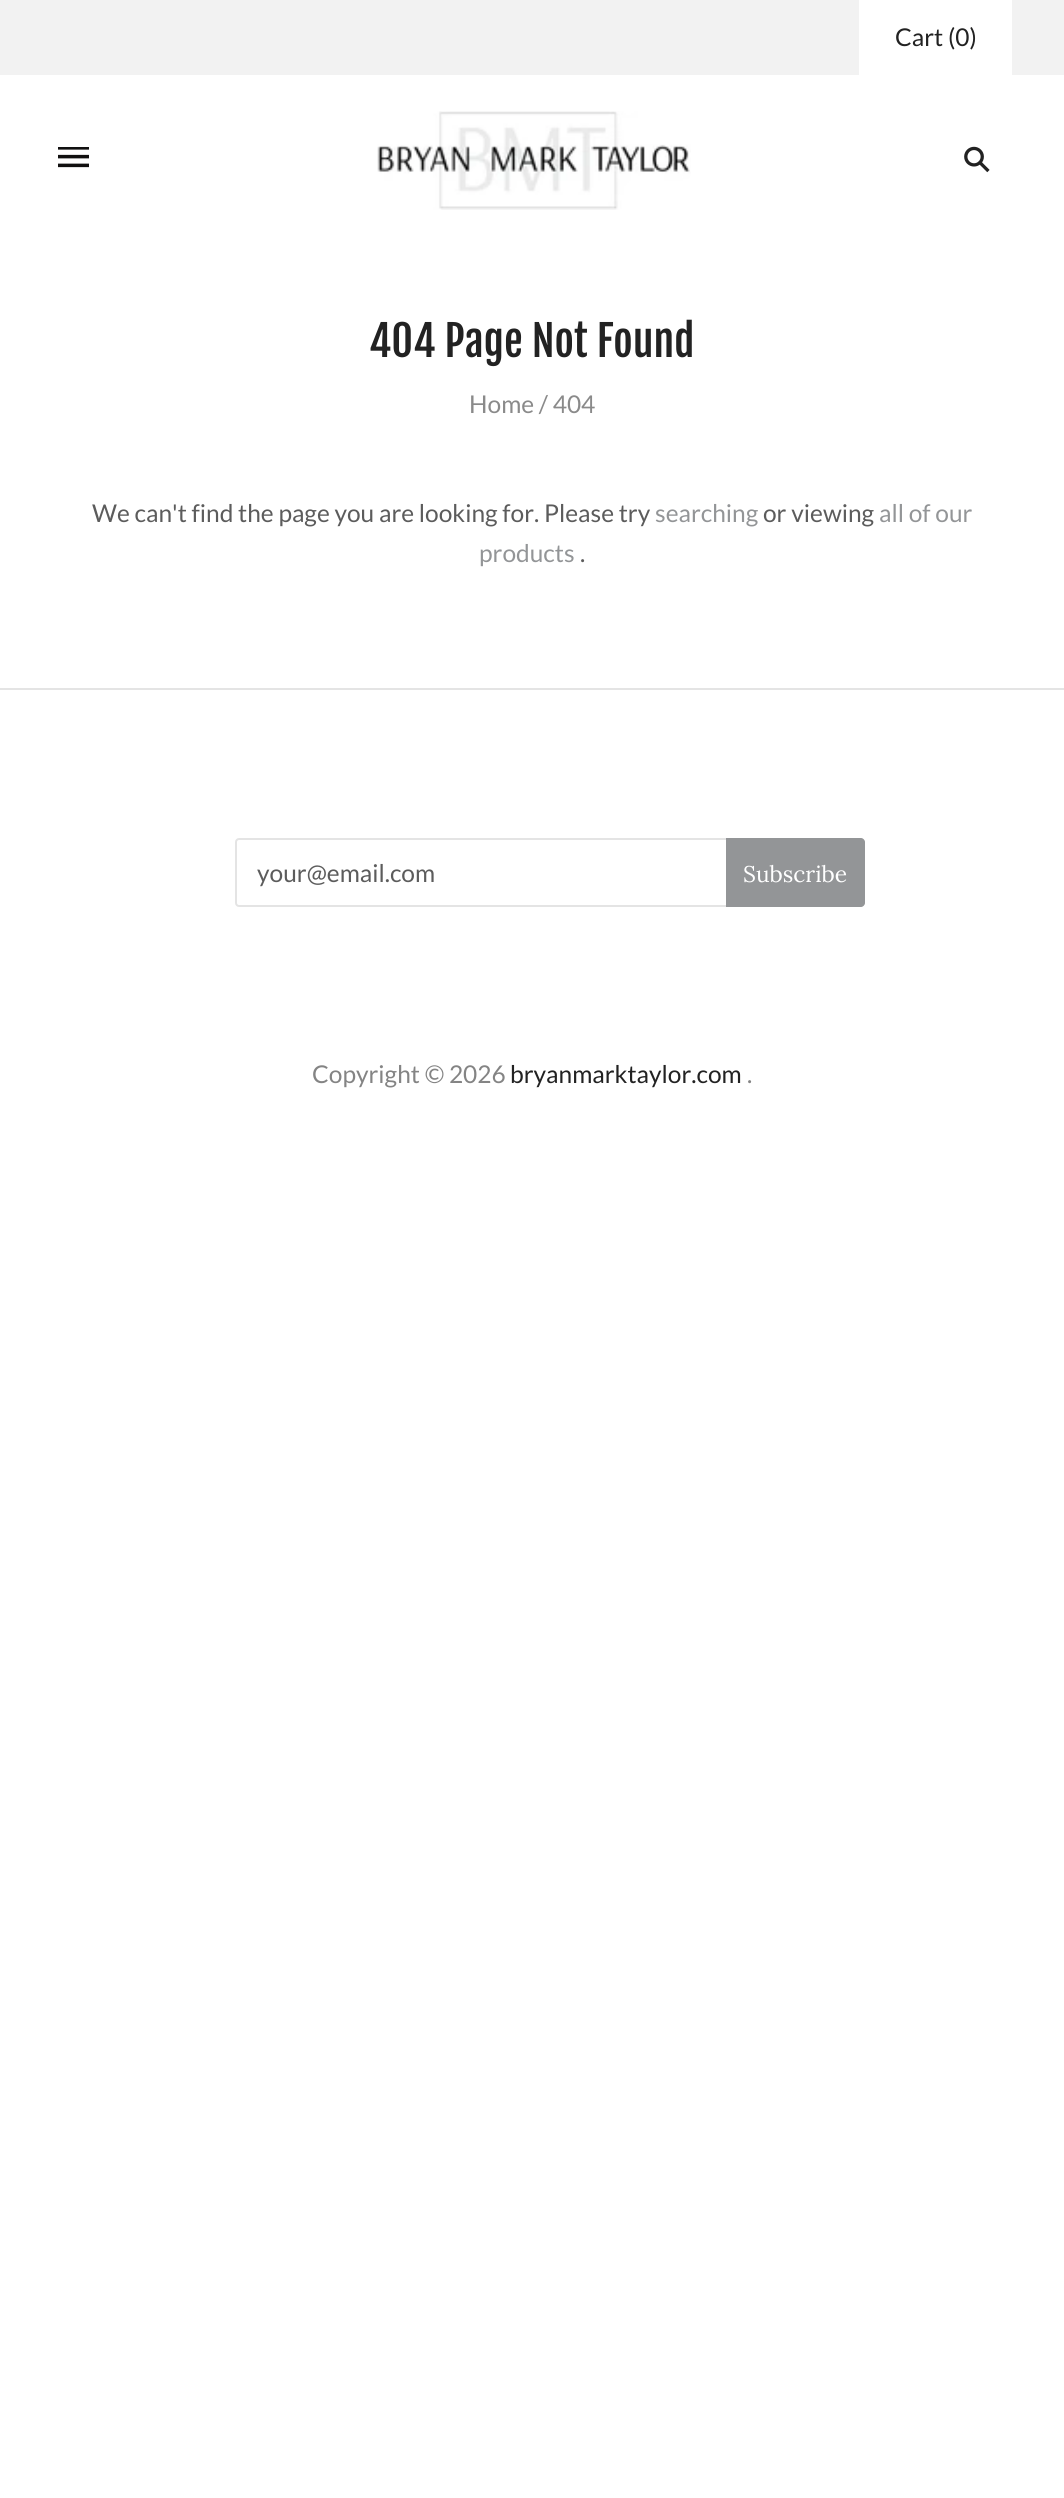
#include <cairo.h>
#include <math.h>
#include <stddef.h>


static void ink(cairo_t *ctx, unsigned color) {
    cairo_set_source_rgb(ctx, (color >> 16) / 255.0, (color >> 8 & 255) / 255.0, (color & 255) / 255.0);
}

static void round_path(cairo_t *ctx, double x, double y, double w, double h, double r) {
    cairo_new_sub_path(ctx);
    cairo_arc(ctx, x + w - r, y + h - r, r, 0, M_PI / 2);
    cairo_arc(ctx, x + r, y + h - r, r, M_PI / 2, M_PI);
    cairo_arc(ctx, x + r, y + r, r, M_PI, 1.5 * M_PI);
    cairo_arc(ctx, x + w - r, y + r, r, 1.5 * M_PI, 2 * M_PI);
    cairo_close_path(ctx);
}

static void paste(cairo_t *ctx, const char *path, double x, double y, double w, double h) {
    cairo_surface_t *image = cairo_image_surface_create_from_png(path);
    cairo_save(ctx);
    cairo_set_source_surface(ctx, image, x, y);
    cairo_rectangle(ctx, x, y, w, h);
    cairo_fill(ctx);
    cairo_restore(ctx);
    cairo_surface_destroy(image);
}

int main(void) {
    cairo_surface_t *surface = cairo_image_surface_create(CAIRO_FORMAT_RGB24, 1064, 2498);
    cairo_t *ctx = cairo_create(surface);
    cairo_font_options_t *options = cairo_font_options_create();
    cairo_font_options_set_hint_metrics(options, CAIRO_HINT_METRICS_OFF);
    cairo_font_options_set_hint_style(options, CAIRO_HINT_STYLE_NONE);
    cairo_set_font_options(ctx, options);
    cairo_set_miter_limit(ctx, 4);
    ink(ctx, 0xFFFFFF);
    cairo_paint(ctx);
    ink(ctx, 0xF2F2F2);
    cairo_rectangle(ctx, 0, 0, 1064, 75);
    cairo_fill(ctx);
    ink(ctx, 0xFFFFFF);
    cairo_rectangle(ctx, 859, 0, 153, 75);
    cairo_fill(ctx);
    cairo_select_font_face(ctx, "Lato", CAIRO_FONT_SLANT_NORMAL, CAIRO_FONT_WEIGHT_NORMAL);
    cairo_set_font_size(ctx, 24.5);
    ink(ctx, 0x222222);
    cairo_move_to(ctx, 895, 46);
    cairo_show_text(ctx, "Cart (0)");
    paste(ctx, "media/1.png", 58, 147, 31, 21);
    paste(ctx, "media/2.png", 377, 111, 314, 99);
    paste(ctx, "media/3.png", 964, 146, 26, 27);
    cairo_select_font_face(ctx, "Fjalla One", CAIRO_FONT_SLANT_NORMAL, CAIRO_FONT_WEIGHT_NORMAL);
    cairo_set_font_size(ctx, 42);
    cairo_move_to(ctx, 369, 357);
    cairo_show_text(ctx, "404 Page Not Found");
    cairo_select_font_face(ctx, "Lato", CAIRO_FONT_SLANT_NORMAL, CAIRO_FONT_WEIGHT_NORMAL);
    cairo_set_font_size(ctx, 24.5);
    ink(ctx, 0x8A8A8A);
    cairo_move_to(ctx, 469, 413);
    cairo_show_text(ctx, "Home / 404");
    ink(ctx, 0x5C5C5C);
    cairo_move_to(ctx, 92, 522);
    cairo_show_text(ctx, "We can't find the page you are looking for. Please try");
    ink(ctx, 0x939597);
    cairo_move_to(ctx, 655, 522);
    cairo_show_text(ctx, "searching");
    ink(ctx, 0x5C5C5C);
    cairo_move_to(ctx, 763, 522);
    cairo_show_text(ctx, "or viewing");
    ink(ctx, 0x939597);
    cairo_move_to(ctx, 879, 522);
    cairo_show_text(ctx, "all of our");
    cairo_move_to(ctx, 479, 562);
    cairo_show_text(ctx, "products");
    ink(ctx, 0x5C5C5C);
    cairo_move_to(ctx, 580, 562);
    cairo_show_text(ctx, ".");
    ink(ctx, 0xE4E4E4);
    cairo_rectangle(ctx, 0, 688, 1064, 2);
    cairo_fill(ctx);
    round_path(ctx, 236, 839, 593, 67, 3);
    cairo_stroke(ctx);
    ink(ctx, 0x5C5C5C);
    cairo_move_to(ctx, 257, 882);
    cairo_show_text(ctx, "your@email.com");
    ink(ctx, 0x939597);
    cairo_new_path(ctx);
    cairo_move_to(ctx, 726, 838);
    cairo_line_to(ctx, 861, 838);
    cairo_curve_to(ctx, 863, 838, 865, 840, 865, 842);
    cairo_line_to(ctx, 865, 903);
    cairo_curve_to(ctx, 865, 905, 863, 907, 861, 907);
    cairo_line_to(ctx, 726, 907);
    cairo_close_path(ctx);
    cairo_fill(ctx);
    cairo_select_font_face(ctx, "Lora", CAIRO_FONT_SLANT_NORMAL, CAIRO_FONT_WEIGHT_NORMAL);
    cairo_set_font_size(ctx, 22.75);
    ink(ctx, 0xFFFFFF);
    cairo_move_to(ctx, 743, 882);
    cairo_show_text(ctx, "Subscribe");
    cairo_select_font_face(ctx, "Lato", CAIRO_FONT_SLANT_NORMAL, CAIRO_FONT_WEIGHT_NORMAL);
    cairo_set_font_size(ctx, 24.5);
    ink(ctx, 0x848484);
    cairo_move_to(ctx, 312, 1083);
    cairo_show_text(ctx, "Copyright © 2026");
    ink(ctx, 0x222222);
    cairo_move_to(ctx, 510, 1083);
    cairo_show_text(ctx, "bryanmarktaylor.com");
    ink(ctx, 0x848484);
    cairo_move_to(ctx, 747, 1083);
    cairo_show_text(ctx, ".");
    cairo_surface_write_to_png(surface, "image.png");
    cairo_font_options_destroy(options);
    cairo_destroy(ctx);
    cairo_surface_destroy(surface);
    return 0;
}
